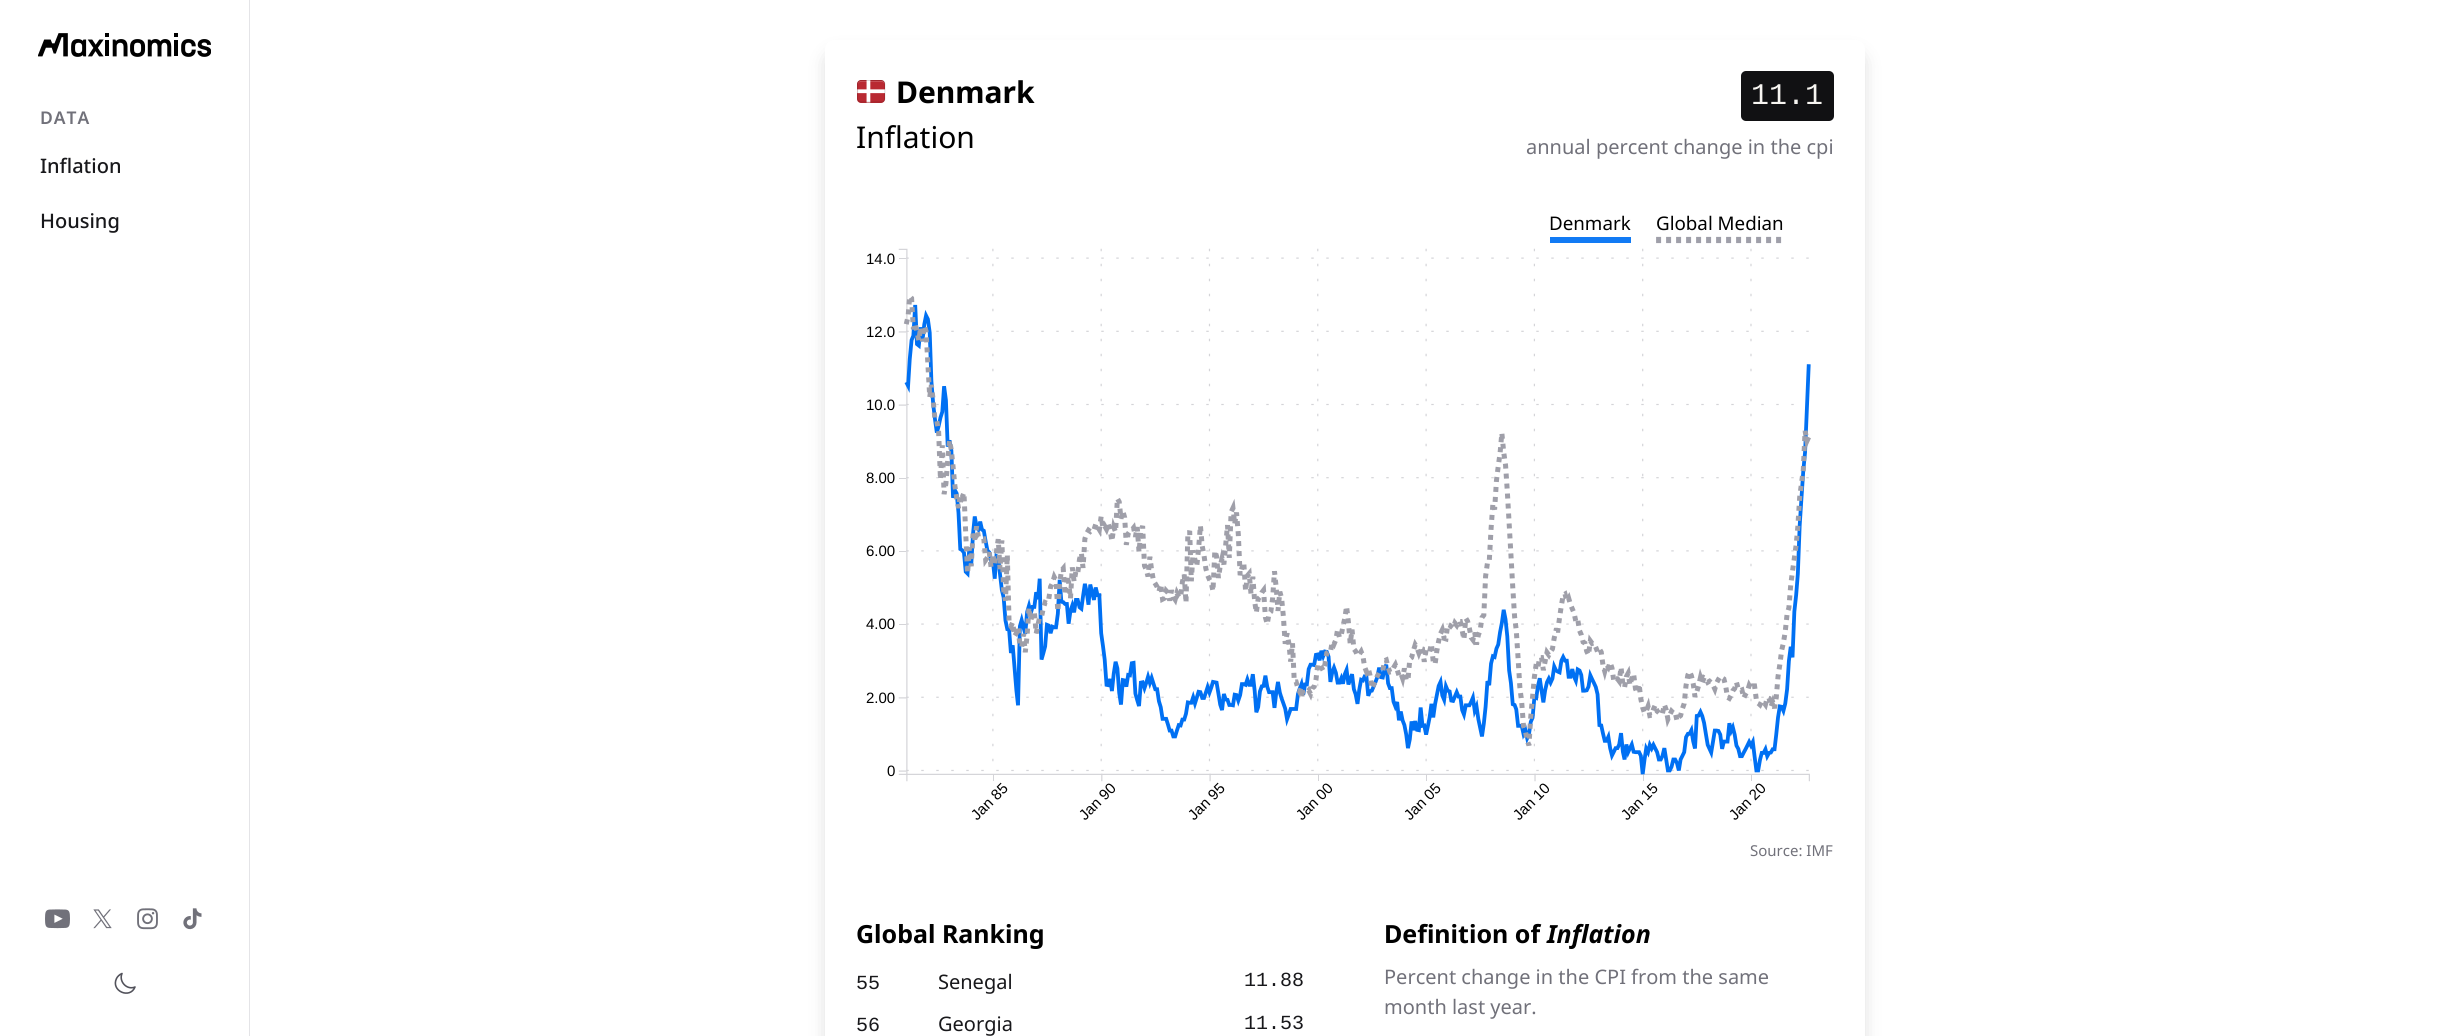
#include <cairo.h>
#include <math.h>
#include <stddef.h>

typedef struct { double x, y; const char *s; } line_t;

static void ink(cairo_t *ctx, unsigned color) {
    cairo_set_source_rgb(ctx, (color >> 16) / 255.0, (color >> 8 & 255) / 255.0, (color & 255) / 255.0);
}

static void write_spaced(cairo_t *ctx, double x, double y, const char *s, double letter, double word) {
    cairo_move_to(ctx, x, y);
    while (*s) {
        char ch[5] = {0};
        int n = 0;
        do ch[n++] = *s++; while ((*s & 0xC0) == 0x80);
        cairo_show_text(ctx, ch);
        cairo_rel_move_to(ctx, letter + word * (*ch == ' '), 0);
    }
}

static void round_path(cairo_t *ctx, double x, double y, double w, double h, double r) {
    cairo_new_sub_path(ctx);
    cairo_arc(ctx, x + w - r, y + h - r, r, 0, M_PI / 2);
    cairo_arc(ctx, x + r, y + h - r, r, M_PI / 2, M_PI);
    cairo_arc(ctx, x + r, y + r, r, M_PI, 1.5 * M_PI);
    cairo_arc(ctx, x + w - r, y + r, r, 1.5 * M_PI, 2 * M_PI);
    cairo_close_path(ctx);
}

static void blur_box(cairo_t *ctx, double x, double y, double w, double h, double r, double blur, double alpha) {
    cairo_push_group_with_content(ctx, CAIRO_CONTENT_ALPHA);
    cairo_set_operator(ctx, CAIRO_OPERATOR_SOURCE);
    for (int i = 15; i >= -15 && fmin(w, h) + blur * i / 3 > 0; i -= 2) {
        double e = blur * i / 6;
        cairo_set_source_rgba(ctx, 0, 0, 0, alpha * erfc((i - 1) / 8.5) / 2);
        round_path(ctx, x - e, y - e, w + 2 * e, h + 2 * e, fmax(0, fmin(r + e + blur * .6, fmin(w, h) / 2 + e)));
        cairo_fill(ctx);
    }
    cairo_pattern_t *soft = cairo_pop_group(ctx);
    cairo_mask(ctx, soft);
    cairo_pattern_destroy(soft);
}

static void paste(cairo_t *ctx, const char *path, double x, double y, double w, double h) {
    cairo_surface_t *image = cairo_image_surface_create_from_png(path);
    cairo_save(ctx);
    cairo_set_source_surface(ctx, image, x, y);
    cairo_rectangle(ctx, x, y, w, h);
    cairo_fill(ctx);
    cairo_restore(ctx);
    cairo_surface_destroy(image);
}

int main(void) {
    cairo_surface_t *surface = cairo_image_surface_create(CAIRO_FORMAT_RGB24, 2438, 1036);
    cairo_t *ctx = cairo_create(surface);
    cairo_font_options_t *options = cairo_font_options_create();
    cairo_font_options_set_hint_metrics(options, CAIRO_HINT_METRICS_OFF);
    cairo_font_options_set_hint_style(options, CAIRO_HINT_STYLE_NONE);
    cairo_set_font_options(ctx, options);
    cairo_set_miter_limit(ctx, 4);
    ink(ctx, 0xFFFFFF);
    cairo_paint(ctx);
    ink(ctx, 0xE4E4E7);
    cairo_rectangle(ctx, 249, 0, 1, 1036);
    cairo_fill(ctx);
    paste(ctx, "media/1.png", 38, 33, 173, 24);
    cairo_select_font_face(ctx, "Noto Sans SemiBold", CAIRO_FONT_SLANT_NORMAL, CAIRO_FONT_WEIGHT_NORMAL);
    cairo_set_font_size(ctx, 17.5);
    ink(ctx, 0x71717A);
    write_spaced(ctx, 40, 124, "DATA", 1, 0);
    cairo_select_font_face(ctx, "Noto Sans Medium", CAIRO_FONT_SLANT_NORMAL, CAIRO_FONT_WEIGHT_NORMAL);
    cairo_set_font_size(ctx, 20);
    ink(ctx, 0x18181B);
    cairo_move_to(ctx, 40, 173);
    cairo_show_text(ctx, "Inflation");
    cairo_move_to(ctx, 40, 228);
    cairo_show_text(ctx, "Housing");
    paste(ctx, "media/2.png", 45, 909, 25, 20);
    paste(ctx, "media/3.png", 93, 909, 19, 20);
    paste(ctx, "media/4.png", 137, 908, 21, 22);
    paste(ctx, "media/5.png", 183, 908, 19, 22);
    cairo_new_path(ctx);
    cairo_move_to(ctx, 135, 987);
    cairo_curve_to(ctx, 127, 990.5, 118.5, 981.5, 122, 973.5);
    cairo_curve_to(ctx, 119.5, 974.5, 117.5, 976.5, 116.5, 978.5);
    cairo_curve_to(ctx, 110.5, 991, 130, 999.5, 135, 987);
    cairo_close_path(ctx);
    ink(ctx, 0x52525B);
    cairo_set_line_width(ctx, 1.6);
    cairo_set_line_cap(ctx, CAIRO_LINE_CAP_ROUND);
    cairo_set_line_join(ctx, CAIRO_LINE_JOIN_ROUND);
    cairo_stroke(ctx);
    cairo_save(ctx);
    cairo_set_fill_rule(ctx, CAIRO_FILL_RULE_EVEN_ODD);
    cairo_new_path(ctx);
    cairo_move_to(ctx, 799, 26);
    cairo_line_to(ctx, 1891, 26);
    cairo_line_to(ctx, 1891, 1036);
    cairo_line_to(ctx, 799, 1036);
    cairo_close_path(ctx);
    cairo_move_to(ctx, 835, 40);
    cairo_line_to(ctx, 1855, 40);
    cairo_curve_to(ctx, 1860.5, 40, 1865, 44.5, 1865, 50);
    cairo_line_to(ctx, 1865, 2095);
    cairo_curve_to(ctx, 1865, 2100.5, 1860.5, 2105, 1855, 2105);
    cairo_line_to(ctx, 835, 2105);
    cairo_curve_to(ctx, 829.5, 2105, 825, 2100.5, 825, 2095);
    cairo_line_to(ctx, 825, 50);
    cairo_curve_to(ctx, 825, 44.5, 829.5, 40, 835, 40);
    cairo_close_path(ctx);
    cairo_clip(ctx);
    ink(ctx, 0x000000);
    blur_box(ctx, 829, 56, 1032, 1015, 6, 9.5, 0.2);
    cairo_restore(ctx);
    paste(ctx, "media/6.png", 857, 80, 29, 23);
    cairo_select_font_face(ctx, "Noto Sans", CAIRO_FONT_SLANT_NORMAL, CAIRO_FONT_WEIGHT_BOLD);
    cairo_set_font_size(ctx, 30);
    ink(ctx, 0x000000);
    cairo_move_to(ctx, 896, 103);
    cairo_show_text(ctx, "Denmark");
    cairo_select_font_face(ctx, "Noto Sans", CAIRO_FONT_SLANT_NORMAL, CAIRO_FONT_WEIGHT_NORMAL);
    cairo_move_to(ctx, 856, 148);
    cairo_show_text(ctx, "Inflation");
    ink(ctx, 0x111113);
    round_path(ctx, 1741, 71, 93, 50, 5);
    cairo_fill(ctx);
    cairo_select_font_face(ctx, "Liberation Mono", CAIRO_FONT_SLANT_NORMAL, CAIRO_FONT_WEIGHT_NORMAL);
    ink(ctx, 0xF7F5F1);
    cairo_move_to(ctx, 1751, 104);
    cairo_show_text(ctx, "11.1");
    cairo_select_font_face(ctx, "Noto Sans", CAIRO_FONT_SLANT_NORMAL, CAIRO_FONT_WEIGHT_NORMAL);
    cairo_set_font_size(ctx, 20);
    ink(ctx, 0x71717A);
    cairo_move_to(ctx, 1526, 154);
    cairo_show_text(ctx, "annual percent change in the cpi");
    paste(ctx, "media/7.png", 898, 236, 913, 546);
    cairo_set_font_size(ctx, 18.75);
    ink(ctx, 0x000000);
    cairo_move_to(ctx, 1549, 230);
    cairo_show_text(ctx, "Denmark");
    cairo_move_to(ctx, 1656, 230);
    cairo_show_text(ctx, "Global Median");
    cairo_select_font_face(ctx, "Liberation Sans", CAIRO_FONT_SLANT_NORMAL, CAIRO_FONT_WEIGHT_NORMAL);
    cairo_set_font_size(ctx, 15);
    {
        static const line_t items[] = {
            {866, 264, "14.0"},
            {866, 337, "12.0"},
            {866, 410, "10.0"},
            {866, 483, "8.00"},
            {866, 556, "6.00"},
            {866, 629, "4.00"},
            {866, 703, "2.00"},
            {887, 776, "0"},
        };
        for (size_t i = 0; i < sizeof items / sizeof *items; i++) {
            cairo_move_to(ctx, items[i].x, items[i].y);
            cairo_show_text(ctx, items[i].s);
        }
    }
    cairo_save(ctx);
    cairo_translate(ctx, 977, 821);
    cairo_rotate(ctx, -45 * M_PI / 180);
    cairo_move_to(ctx, 0, 0);
    cairo_show_text(ctx, "Jan 85");
    cairo_restore(ctx);
    cairo_save(ctx);
    cairo_translate(ctx, 1085, 821);
    cairo_rotate(ctx, -45 * M_PI / 180);
    cairo_move_to(ctx, 0, 0);
    cairo_show_text(ctx, "Jan 90");
    cairo_restore(ctx);
    cairo_save(ctx);
    cairo_translate(ctx, 1194, 821);
    cairo_rotate(ctx, -45 * M_PI / 180);
    cairo_move_to(ctx, 0, 0);
    cairo_show_text(ctx, "Jan 95");
    cairo_restore(ctx);
    cairo_save(ctx);
    cairo_translate(ctx, 1302, 821);
    cairo_rotate(ctx, -45 * M_PI / 180);
    cairo_move_to(ctx, 0, 0);
    cairo_show_text(ctx, "Jan 00");
    cairo_restore(ctx);
    cairo_save(ctx);
    cairo_translate(ctx, 1410, 821);
    cairo_rotate(ctx, -45 * M_PI / 180);
    cairo_move_to(ctx, 0, 0);
    cairo_show_text(ctx, "Jan 05");
    cairo_restore(ctx);
    cairo_save(ctx);
    cairo_translate(ctx, 1519, 821);
    cairo_rotate(ctx, -45 * M_PI / 180);
    cairo_move_to(ctx, 0, 0);
    cairo_show_text(ctx, "Jan 10");
    cairo_restore(ctx);
    cairo_save(ctx);
    cairo_translate(ctx, 1627, 821);
    cairo_rotate(ctx, -45 * M_PI / 180);
    cairo_move_to(ctx, 0, 0);
    cairo_show_text(ctx, "Jan 15");
    cairo_restore(ctx);
    cairo_save(ctx);
    cairo_translate(ctx, 1735, 821);
    cairo_rotate(ctx, -45 * M_PI / 180);
    cairo_move_to(ctx, 0, 0);
    cairo_show_text(ctx, "Jan 20");
    cairo_restore(ctx);
    cairo_select_font_face(ctx, "Noto Sans", CAIRO_FONT_SLANT_NORMAL, CAIRO_FONT_WEIGHT_NORMAL);
    ink(ctx, 0x71717A);
    cairo_move_to(ctx, 1750, 856);
    cairo_show_text(ctx, "Source: IMF");
    cairo_select_font_face(ctx, "Noto Sans", CAIRO_FONT_SLANT_NORMAL, CAIRO_FONT_WEIGHT_BOLD);
    cairo_set_font_size(ctx, 25);
    ink(ctx, 0x000000);
    cairo_move_to(ctx, 856, 943);
    cairo_show_text(ctx, "Global Ranking");
    cairo_select_font_face(ctx, "Liberation Mono", CAIRO_FONT_SLANT_NORMAL, CAIRO_FONT_WEIGHT_NORMAL);
    cairo_set_font_size(ctx, 20);
    ink(ctx, 0x18181B);
    cairo_move_to(ctx, 856, 989);
    cairo_show_text(ctx, "55");
    cairo_select_font_face(ctx, "Noto Sans", CAIRO_FONT_SLANT_NORMAL, CAIRO_FONT_WEIGHT_NORMAL);
    cairo_move_to(ctx, 938, 989);
    cairo_show_text(ctx, "Senegal");
    cairo_select_font_face(ctx, "Liberation Mono", CAIRO_FONT_SLANT_NORMAL, CAIRO_FONT_WEIGHT_NORMAL);
    cairo_move_to(ctx, 1244, 986);
    cairo_show_text(ctx, "11.88");
    cairo_move_to(ctx, 856, 1031);
    cairo_show_text(ctx, "56");
    cairo_select_font_face(ctx, "Noto Sans", CAIRO_FONT_SLANT_NORMAL, CAIRO_FONT_WEIGHT_NORMAL);
    cairo_move_to(ctx, 938, 1031);
    cairo_show_text(ctx, "Georgia");
    cairo_select_font_face(ctx, "Liberation Mono", CAIRO_FONT_SLANT_NORMAL, CAIRO_FONT_WEIGHT_NORMAL);
    cairo_move_to(ctx, 1244, 1029);
    cairo_show_text(ctx, "11.53");
    cairo_select_font_face(ctx, "Noto Sans", CAIRO_FONT_SLANT_NORMAL, CAIRO_FONT_WEIGHT_BOLD);
    cairo_set_font_size(ctx, 25);
    ink(ctx, 0x000000);
    cairo_move_to(ctx, 1384, 943);
    cairo_show_text(ctx, "Definition of");
    cairo_select_font_face(ctx, "Noto Sans", CAIRO_FONT_SLANT_ITALIC, CAIRO_FONT_WEIGHT_BOLD);
    cairo_move_to(ctx, 1547, 943);
    cairo_show_text(ctx, "Inflation");
    cairo_select_font_face(ctx, "Noto Sans", CAIRO_FONT_SLANT_NORMAL, CAIRO_FONT_WEIGHT_NORMAL);
    cairo_set_font_size(ctx, 20);
    ink(ctx, 0x71717A);
    cairo_move_to(ctx, 1384, 984);
    cairo_show_text(ctx, "Percent change in the CPI from the same");
    cairo_move_to(ctx, 1384, 1014);
    cairo_show_text(ctx, "month last year.");
    cairo_surface_write_to_png(surface, "image.png");
    cairo_font_options_destroy(options);
    cairo_destroy(ctx);
    cairo_surface_destroy(surface);
    return 0;
}
